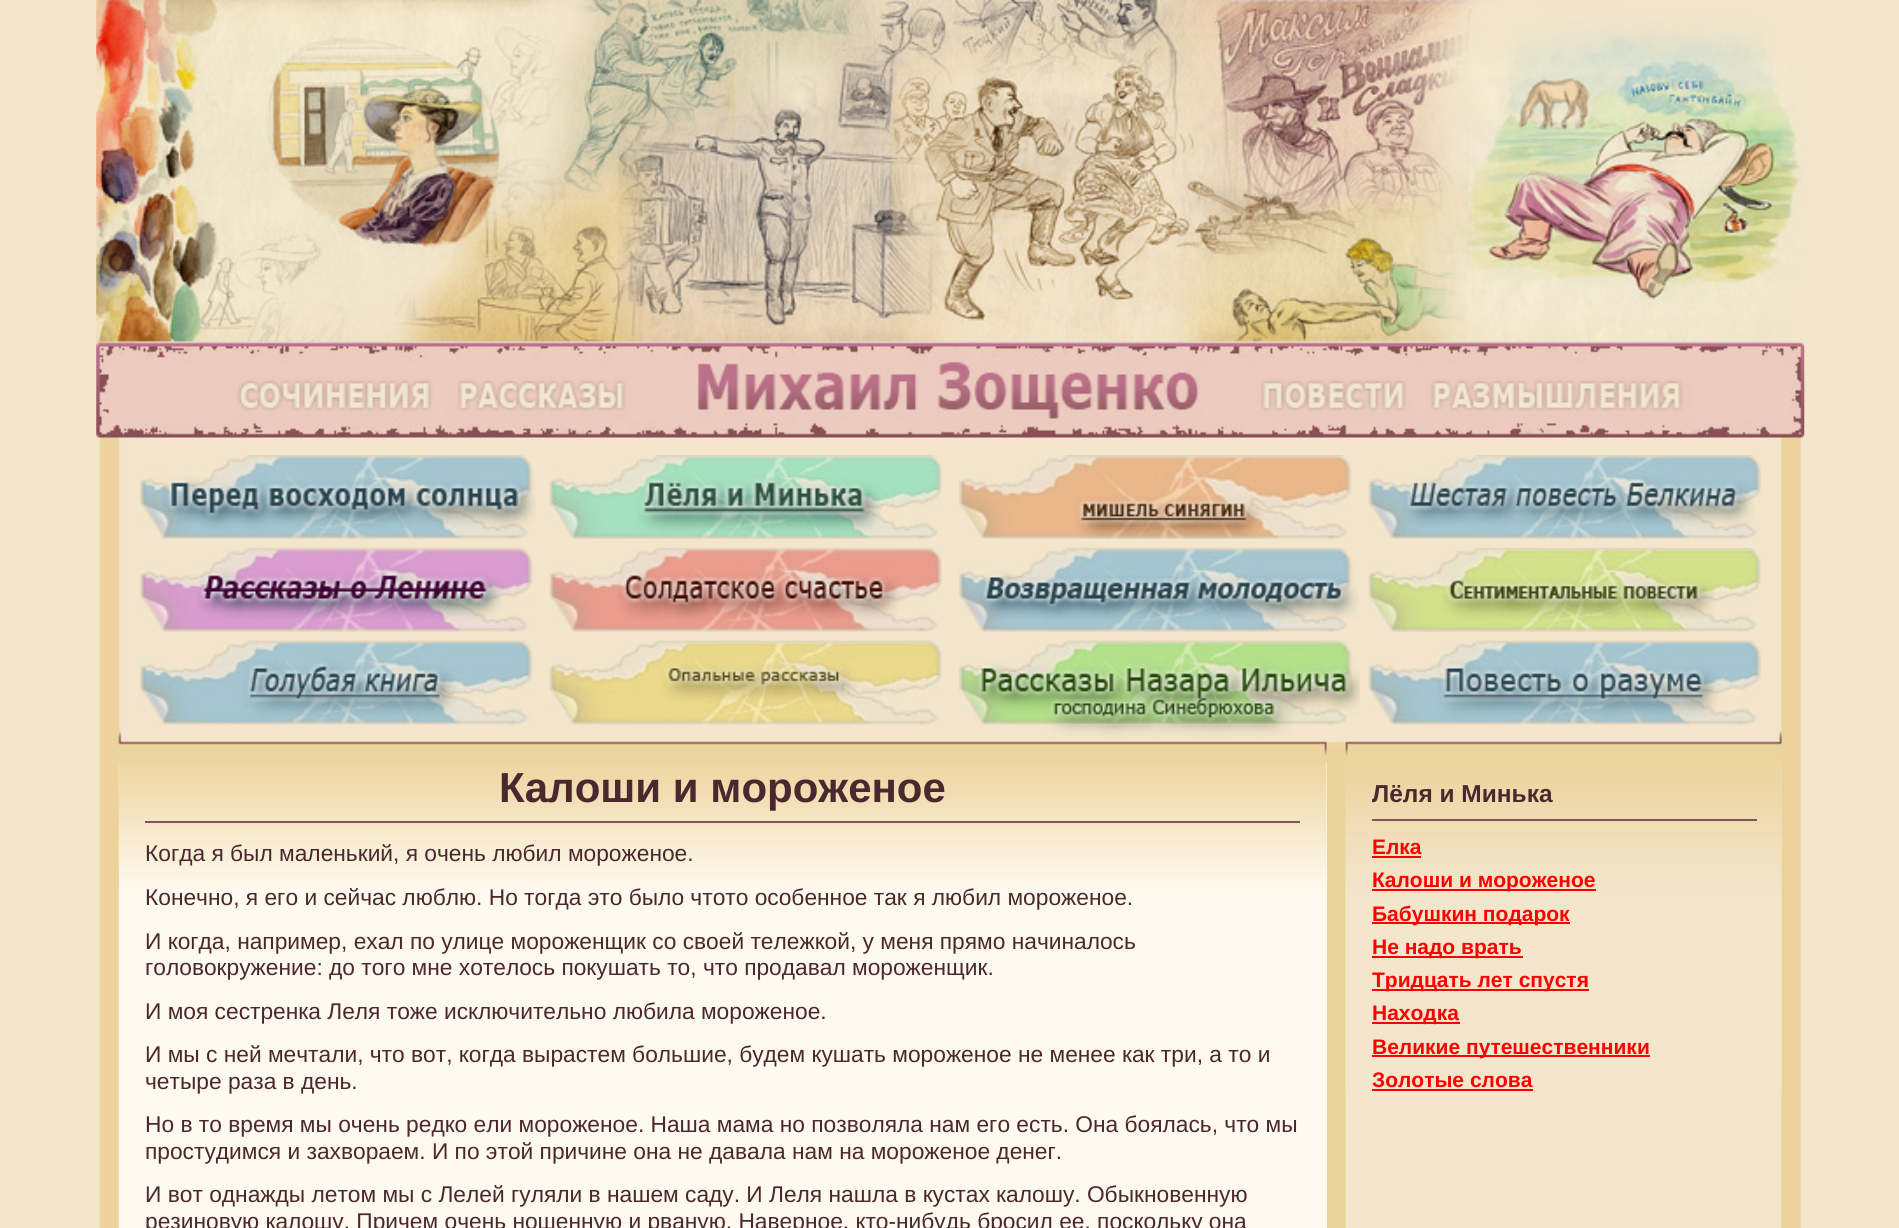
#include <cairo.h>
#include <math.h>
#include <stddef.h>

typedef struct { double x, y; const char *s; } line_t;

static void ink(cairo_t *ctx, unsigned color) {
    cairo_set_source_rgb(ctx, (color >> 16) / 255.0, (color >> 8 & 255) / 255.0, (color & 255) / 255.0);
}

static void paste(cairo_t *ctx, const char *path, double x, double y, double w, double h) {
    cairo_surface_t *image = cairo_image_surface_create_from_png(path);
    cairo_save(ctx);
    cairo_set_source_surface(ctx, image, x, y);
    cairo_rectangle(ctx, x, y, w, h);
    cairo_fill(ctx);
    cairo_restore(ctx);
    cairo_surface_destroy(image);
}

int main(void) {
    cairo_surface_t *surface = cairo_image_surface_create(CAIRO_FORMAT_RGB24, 1899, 1228);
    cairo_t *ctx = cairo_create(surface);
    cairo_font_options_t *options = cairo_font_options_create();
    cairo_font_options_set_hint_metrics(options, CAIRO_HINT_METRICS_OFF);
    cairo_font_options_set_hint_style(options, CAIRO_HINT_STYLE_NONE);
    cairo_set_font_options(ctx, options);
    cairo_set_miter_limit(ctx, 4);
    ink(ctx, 0xF3E6CD);
    cairo_paint(ctx);
    paste(ctx, "media/1.png", 99, 437, 1702, 791);
    paste(ctx, "media/2.png", 96, 0, 1709, 438);
    paste(ctx, "media/3.png", 140, 455, 396, 84);
    paste(ctx, "media/4.png", 549, 455, 393, 84);
    paste(ctx, "media/5.png", 959, 455, 393, 84);
    paste(ctx, "media/6.png", 1368, 455, 393, 84);
    paste(ctx, "media/7.png", 140, 547, 393, 85);
    paste(ctx, "media/8.png", 549, 547, 393, 85);
    paste(ctx, "media/9.png", 959, 547, 400, 85);
    paste(ctx, "media/10.png", 1368, 547, 393, 85);
    paste(ctx, "media/15.png", 110, 724, 1680, 39);
    paste(ctx, "media/11.png", 140, 640, 393, 85);
    paste(ctx, "media/12.png", 549, 640, 393, 85);
    paste(ctx, "media/13.png", 959, 640, 401, 85);
    paste(ctx, "media/14.png", 1368, 640, 393, 85);
    paste(ctx, "media/16.png", 114, 763, 1232, 465);
    ink(ctx, 0xFFFAF0);
    cairo_rectangle(ctx, 119, 763, 1208, 465);
    cairo_fill(ctx);
    paste(ctx, "media/17.png", 119, 763, 1208, 126);
    ink(ctx, 0x894F56);
    cairo_rectangle(ctx, 145, 821, 1155, 2);
    cairo_fill(ctx);
    cairo_select_font_face(ctx, "Liberation Sans", CAIRO_FONT_SLANT_NORMAL, CAIRO_FONT_WEIGHT_BOLD);
    cairo_set_font_size(ctx, 42);
    ink(ctx, 0x4B282E);
    cairo_move_to(ctx, 499, 802);
    cairo_show_text(ctx, "Калоши и мороженое");
    cairo_select_font_face(ctx, "Liberation Sans", CAIRO_FONT_SLANT_NORMAL, CAIRO_FONT_WEIGHT_NORMAL);
    cairo_set_font_size(ctx, 22.75);
    {
        static const line_t items[] = {
            {145, 861, "Когда я был маленький, я очень любил мороженое."},
            {145, 905, "Конечно, я его и сейчас люблю. Но тогда это было чтото особенное так я любил мороженое."},
            {145, 949, "И когда, например, ехал по улице мороженщик со своей тележкой, у меня прямо начиналось"},
            {145, 975, "головокружение: до того мне хотелось покушать то, что продавал мороженщик."},
            {145, 1019, "И моя сестренка Леля тоже исключительно любила мороженое."},
            {145, 1062, "И мы с ней мечтали, что вот, когда вырастем большие, будем кушать мороженое не менее как три, а то и"},
            {145, 1089, "четыре раза в день."},
            {145, 1132, "Но в то время мы очень редко ели мороженое. Наша мама но позволяла нам его есть. Она боялась, что мы"},
            {145, 1159, "простудимся и захвораем. И по этой причине она не давала нам на мороженое денег."},
            {145, 1202, "И вот однажды летом мы с Лелей гуляли в нашем саду. И Леля нашла в кустах калошу. Обыкновенную"},
            {145, 1229, "резиновую калошу. Причем очень ношенную и рваную. Наверное, кто-нибудь бросил ее, поскольку она"},
        };
        for (size_t i = 0; i < sizeof items / sizeof *items; i++) {
            cairo_move_to(ctx, items[i].x, items[i].y);
            cairo_show_text(ctx, items[i].s);
        }
    }
    paste(ctx, "media/18.png", 1345, 763, 437, 327);
    ink(ctx, 0x894F56);
    cairo_rectangle(ctx, 1372, 819, 385, 2);
    cairo_fill(ctx);
    cairo_select_font_face(ctx, "Liberation Sans", CAIRO_FONT_SLANT_NORMAL, CAIRO_FONT_WEIGHT_BOLD);
    cairo_set_font_size(ctx, 24.5);
    ink(ctx, 0x4B282E);
    cairo_move_to(ctx, 1372, 802);
    cairo_show_text(ctx, "Лёля и Минька");
    cairo_set_font_size(ctx, 21);
    ink(ctx, 0xFF0000);
    cairo_move_to(ctx, 1372, 854);
    cairo_show_text(ctx, "Елка");
    cairo_rectangle(ctx, 1372, 856, 49, 2);
    cairo_fill(ctx);
    cairo_rectangle(ctx, 1372, 889, 224, 2);
    cairo_fill(ctx);
    cairo_move_to(ctx, 1372, 887);
    cairo_show_text(ctx, "Калоши и мороженое");
    cairo_rectangle(ctx, 1372, 922, 198, 2);
    cairo_fill(ctx);
    cairo_move_to(ctx, 1372, 921);
    cairo_show_text(ctx, "Бабушкин подарок");
    cairo_rectangle(ctx, 1372, 956, 151, 2);
    cairo_fill(ctx);
    cairo_move_to(ctx, 1372, 954);
    cairo_show_text(ctx, "Не надо врать");
    cairo_rectangle(ctx, 1372, 989, 217, 2);
    cairo_fill(ctx);
    cairo_move_to(ctx, 1372, 987);
    cairo_show_text(ctx, "Тридцать лет спустя");
    cairo_rectangle(ctx, 1372, 1022, 88, 2);
    cairo_fill(ctx);
    cairo_move_to(ctx, 1372, 1020);
    cairo_show_text(ctx, "Находка");
    cairo_rectangle(ctx, 1372, 1055, 278, 2);
    cairo_fill(ctx);
    cairo_move_to(ctx, 1372, 1054);
    cairo_show_text(ctx, "Великие путешественники");
    cairo_move_to(ctx, 1372, 1087);
    cairo_show_text(ctx, "Золотые слова");
    cairo_rectangle(ctx, 1372, 1089, 161, 2);
    cairo_fill(ctx);
    cairo_surface_write_to_png(surface, "image.png");
    cairo_font_options_destroy(options);
    cairo_destroy(ctx);
    cairo_surface_destroy(surface);
    return 0;
}
